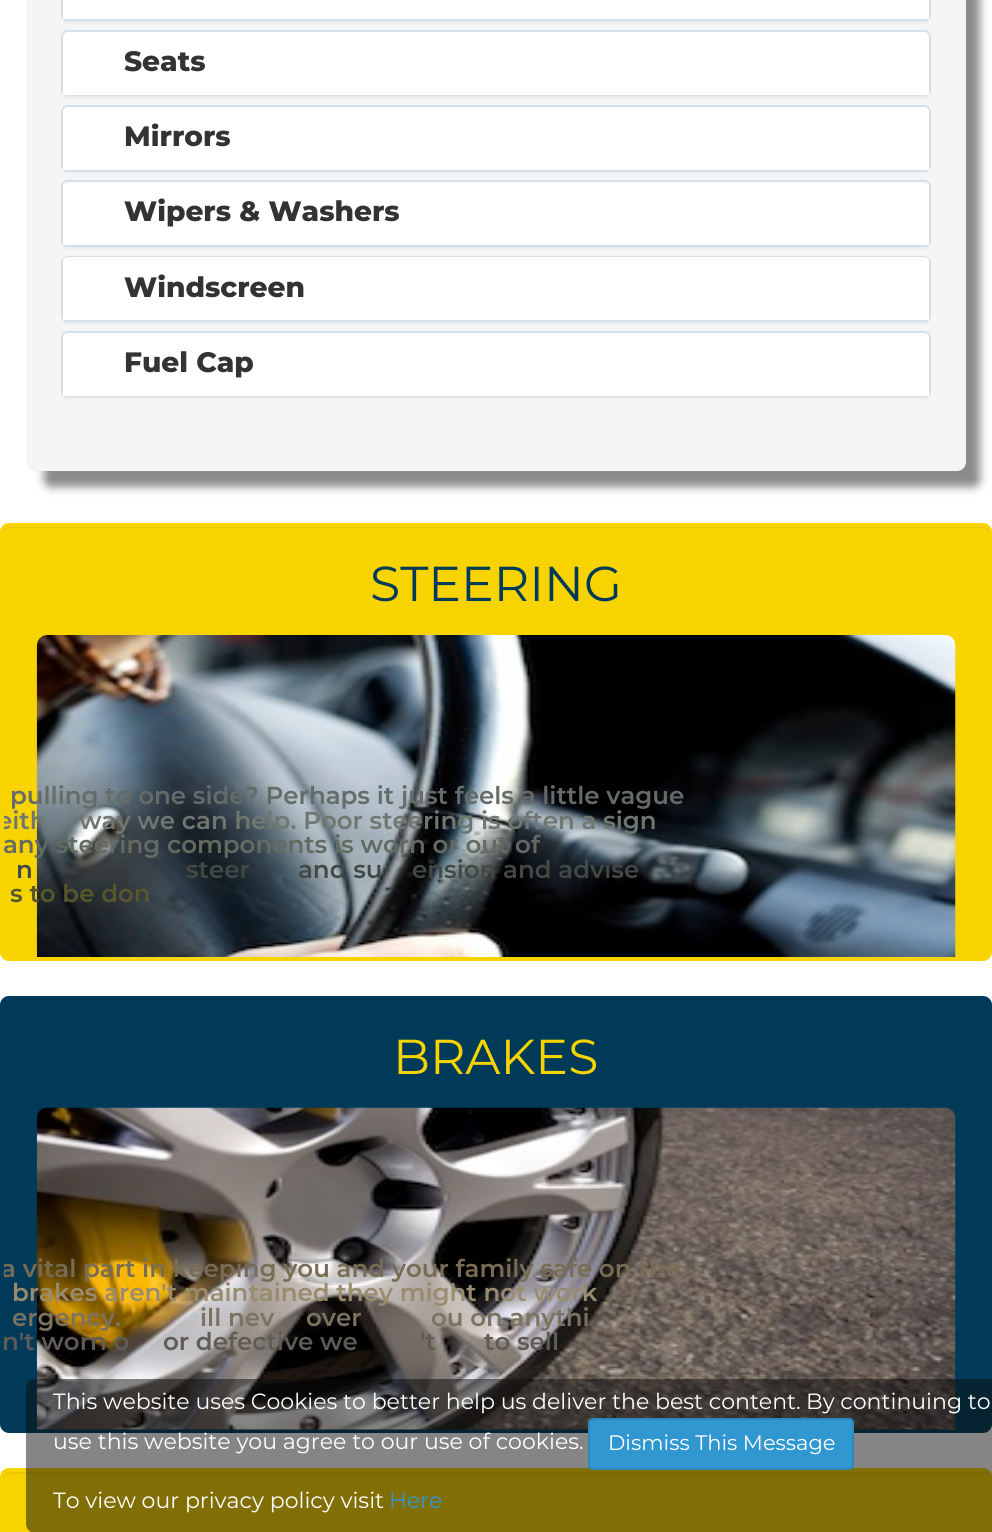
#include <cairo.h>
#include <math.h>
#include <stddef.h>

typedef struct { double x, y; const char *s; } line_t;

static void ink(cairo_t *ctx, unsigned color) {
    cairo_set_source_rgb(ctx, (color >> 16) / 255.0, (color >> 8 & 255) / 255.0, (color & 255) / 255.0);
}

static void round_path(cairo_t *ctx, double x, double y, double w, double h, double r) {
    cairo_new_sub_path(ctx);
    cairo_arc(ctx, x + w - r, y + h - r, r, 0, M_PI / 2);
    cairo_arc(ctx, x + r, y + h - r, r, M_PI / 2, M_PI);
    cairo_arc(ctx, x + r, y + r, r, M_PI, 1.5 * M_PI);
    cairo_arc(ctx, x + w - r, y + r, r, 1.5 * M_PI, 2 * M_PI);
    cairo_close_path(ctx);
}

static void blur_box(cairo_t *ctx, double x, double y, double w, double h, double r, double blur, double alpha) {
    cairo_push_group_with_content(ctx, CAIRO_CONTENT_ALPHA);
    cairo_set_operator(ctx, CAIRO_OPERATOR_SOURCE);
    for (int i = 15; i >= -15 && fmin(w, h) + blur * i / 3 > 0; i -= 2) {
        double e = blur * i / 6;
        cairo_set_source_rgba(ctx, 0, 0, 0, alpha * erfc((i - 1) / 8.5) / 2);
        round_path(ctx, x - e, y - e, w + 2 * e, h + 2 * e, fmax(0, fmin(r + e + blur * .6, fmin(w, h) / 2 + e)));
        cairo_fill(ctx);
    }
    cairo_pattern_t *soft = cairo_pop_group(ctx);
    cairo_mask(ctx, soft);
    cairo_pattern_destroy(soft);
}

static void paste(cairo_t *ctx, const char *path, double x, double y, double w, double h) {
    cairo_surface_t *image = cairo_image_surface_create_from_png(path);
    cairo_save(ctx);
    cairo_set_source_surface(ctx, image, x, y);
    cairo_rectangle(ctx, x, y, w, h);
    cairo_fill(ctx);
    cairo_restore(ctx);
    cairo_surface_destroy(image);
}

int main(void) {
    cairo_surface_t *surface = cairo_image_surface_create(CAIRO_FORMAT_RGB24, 992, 1532);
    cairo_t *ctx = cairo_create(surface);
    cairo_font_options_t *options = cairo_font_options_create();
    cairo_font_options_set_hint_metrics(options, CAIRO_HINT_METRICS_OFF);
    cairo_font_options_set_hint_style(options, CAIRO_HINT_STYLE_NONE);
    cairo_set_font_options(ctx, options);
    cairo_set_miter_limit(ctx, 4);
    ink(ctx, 0xFFFFFF);
    cairo_paint(ctx);
    ink(ctx, 0x616161);
    blur_box(ctx, 44, -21, 936, 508, 7, 4.5, 0.74);
    ink(ctx, 0xF5F5F5);
    round_path(ctx, 26, -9, 940, 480, 9);
    cairo_fill(ctx);
    ink(ctx, 0x000000);
    blur_box(ctx, 61, -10, 870, 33, 7, 1, 0.05);
    round_path(ctx, 62, -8, 868, 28, 6);
    ink(ctx, 0xD3E0E9);
    cairo_stroke(ctx);
    ink(ctx, 0xFFFFFF);
    cairo_rectangle(ctx, 63, 0, 866, 19);
    cairo_fill(ctx);
    ink(ctx, 0x000000);
    blur_box(ctx, 61, 32, 870, 66, 7, 1, 0.05);
    round_path(ctx, 62, 31, 868, 64, 6);
    ink(ctx, 0xD3E0E9);
    cairo_stroke(ctx);
    ink(ctx, 0xFFFFFF);
    cairo_new_path(ctx);
    cairo_move_to(ctx, 68, 32);
    cairo_line_to(ctx, 924, 32);
    cairo_curve_to(ctx, 927, 32, 929, 34, 929, 37);
    cairo_line_to(ctx, 929, 95);
    cairo_line_to(ctx, 63, 95);
    cairo_line_to(ctx, 63, 37);
    cairo_curve_to(ctx, 63, 34, 65, 32, 68, 32);
    cairo_close_path(ctx);
    cairo_fill(ctx);
    cairo_select_font_face(ctx, "Montserrat ExtraBold", CAIRO_FONT_SLANT_NORMAL, CAIRO_FONT_WEIGHT_NORMAL);
    cairo_set_font_size(ctx, 28);
    ink(ctx, 0x333333);
    cairo_move_to(ctx, 124, 71);
    cairo_show_text(ctx, "Seats");
    ink(ctx, 0x000000);
    blur_box(ctx, 61, 107, 870, 66, 7, 1, 0.05);
    round_path(ctx, 62, 106, 868, 65, 6);
    ink(ctx, 0xD3E0E9);
    cairo_stroke(ctx);
    ink(ctx, 0xFFFFFF);
    cairo_new_path(ctx);
    cairo_move_to(ctx, 68, 107);
    cairo_line_to(ctx, 924, 107);
    cairo_curve_to(ctx, 927, 107, 929, 109, 929, 112);
    cairo_line_to(ctx, 929, 170);
    cairo_line_to(ctx, 63, 170);
    cairo_line_to(ctx, 63, 112);
    cairo_curve_to(ctx, 63, 109, 65, 107, 68, 107);
    cairo_close_path(ctx);
    cairo_fill(ctx);
    ink(ctx, 0x333333);
    cairo_move_to(ctx, 124, 146);
    cairo_show_text(ctx, "Mirrors");
    ink(ctx, 0x000000);
    blur_box(ctx, 61, 182, 870, 67, 7, 1, 0.05);
    round_path(ctx, 62, 181, 868, 65, 6);
    ink(ctx, 0xD3E0E9);
    cairo_stroke(ctx);
    ink(ctx, 0xFFFFFF);
    cairo_new_path(ctx);
    cairo_move_to(ctx, 68, 182);
    cairo_line_to(ctx, 924, 182);
    cairo_curve_to(ctx, 927, 182, 929, 184, 929, 187);
    cairo_line_to(ctx, 929, 245);
    cairo_line_to(ctx, 63, 245);
    cairo_line_to(ctx, 63, 187);
    cairo_curve_to(ctx, 63, 184, 65, 182, 68, 182);
    cairo_close_path(ctx);
    cairo_fill(ctx);
    ink(ctx, 0x333333);
    cairo_move_to(ctx, 124, 221);
    cairo_show_text(ctx, "Wipers & Washers");
    ink(ctx, 0x000000);
    blur_box(ctx, 61, 257, 870, 67, 7, 1, 0.05);
    round_path(ctx, 62, 257, 868, 64, 6);
    ink(ctx, 0xD3E0E9);
    cairo_stroke(ctx);
    ink(ctx, 0xFFFFFF);
    cairo_new_path(ctx);
    cairo_move_to(ctx, 68, 257);
    cairo_line_to(ctx, 924, 257);
    cairo_curve_to(ctx, 927, 257, 929, 259, 929, 262);
    cairo_line_to(ctx, 929, 320);
    cairo_line_to(ctx, 63, 320);
    cairo_line_to(ctx, 63, 262);
    cairo_curve_to(ctx, 63, 259, 65, 257, 68, 257);
    cairo_close_path(ctx);
    cairo_fill(ctx);
    ink(ctx, 0x333333);
    cairo_move_to(ctx, 124, 297);
    cairo_show_text(ctx, "Windscreen");
    ink(ctx, 0x000000);
    blur_box(ctx, 61, 333, 870, 66, 7, 1, 0.05);
    round_path(ctx, 62, 332, 868, 64, 6);
    ink(ctx, 0xD3E0E9);
    cairo_stroke(ctx);
    ink(ctx, 0xFFFFFF);
    cairo_new_path(ctx);
    cairo_move_to(ctx, 68, 333);
    cairo_line_to(ctx, 924, 333);
    cairo_curve_to(ctx, 927, 333, 929, 335, 929, 338);
    cairo_line_to(ctx, 929, 396);
    cairo_line_to(ctx, 63, 396);
    cairo_line_to(ctx, 63, 338);
    cairo_curve_to(ctx, 63, 335, 65, 333, 68, 333);
    cairo_close_path(ctx);
    cairo_fill(ctx);
    ink(ctx, 0x333333);
    cairo_move_to(ctx, 124, 372);
    cairo_show_text(ctx, "Fuel Cap");
    ink(ctx, 0xF7D300);
    round_path(ctx, 0, 523, 992, 438, 9);
    cairo_fill(ctx);
    ink(ctx, 0xEBC800);
    cairo_new_path(ctx);
    cairo_move_to(ctx, 9, 528);
    cairo_line_to(ctx, 984, 528);
    cairo_curve_to(ctx, 986, 528, 989, 531, 989, 534);
    cairo_line_to(ctx, 989, 532);
    cairo_curve_to(ctx, 989, 529, 987, 527, 984, 527);
    cairo_line_to(ctx, 9, 527);
    cairo_curve_to(ctx, 6, 527, 4, 529, 4, 532);
    cairo_line_to(ctx, 4, 534);
    cairo_curve_to(ctx, 4, 531, 6, 528, 9, 528);
    cairo_close_path(ctx);
    cairo_fill(ctx);
    cairo_select_font_face(ctx, "Montserrat", CAIRO_FONT_SLANT_NORMAL, CAIRO_FONT_WEIGHT_NORMAL);
    cairo_set_font_size(ctx, 49);
    ink(ctx, 0x003A59);
    cairo_move_to(ctx, 370, 601);
    cairo_show_text(ctx, "STEERING");
    paste(ctx, "media/1.png", 36, 635, 920, 322);
    cairo_select_font_face(ctx, "Montserrat SemiBold", CAIRO_FONT_SLANT_NORMAL, CAIRO_FONT_WEIGHT_NORMAL);
    cairo_set_font_size(ctx, 24.5);
    ink(ctx, 0x646B69);
    cairo_move_to(ctx, 10, 804);
    cairo_show_text(ctx, "pulling to one side? Perhaps it just feels a little vague");
    cairo_save(ctx);
    round_path(ctx, 4, 527, 985, 430, 5);
    cairo_clip(ctx);
    ink(ctx, 0x6F7770);
    cairo_move_to(ctx, -3, 829);
    cairo_show_text(ctx, "eith");
    cairo_restore(ctx);
    ink(ctx, 0x6F7770);
    cairo_move_to(ctx, 79, 829);
    cairo_show_text(ctx, "way we can help. Poor steering is often a sign");
    ink(ctx, 0x636A61);
    cairo_move_to(ctx, 3, 853);
    cairo_show_text(ctx, "any steering components is worn or out of");
    ink(ctx, 0x424945);
    {
        static const line_t items[] = {
            {16, 878, "n"},
            {186, 878, "steer"},
            {298, 878, "and su"},
            {412, 878, "ension and advise"},
        };
        for (size_t i = 0; i < sizeof items / sizeof *items; i++) {
            cairo_move_to(ctx, items[i].x, items[i].y);
            cairo_show_text(ctx, items[i].s);
        }
    }
    ink(ctx, 0x57562C);
    cairo_move_to(ctx, 10, 902);
    cairo_show_text(ctx, "s to be don");
    ink(ctx, 0x003A59);
    round_path(ctx, 0, 996, 992, 437, 9);
    cairo_fill(ctx);
    ink(ctx, 0x003755);
    cairo_new_path(ctx);
    cairo_move_to(ctx, 9, 1001);
    cairo_line_to(ctx, 984, 1001);
    cairo_curve_to(ctx, 986, 1001, 989, 1003, 989, 1006);
    cairo_line_to(ctx, 989, 1004);
    cairo_curve_to(ctx, 989, 1001, 987, 999, 984, 999);
    cairo_line_to(ctx, 9, 999);
    cairo_curve_to(ctx, 6, 999, 4, 1001, 4, 1004);
    cairo_line_to(ctx, 4, 1006);
    cairo_curve_to(ctx, 4, 1003, 6, 1001, 9, 1001);
    cairo_close_path(ctx);
    cairo_fill(ctx);
    cairo_select_font_face(ctx, "Montserrat", CAIRO_FONT_SLANT_NORMAL, CAIRO_FONT_WEIGHT_NORMAL);
    cairo_set_font_size(ctx, 49);
    ink(ctx, 0xF7D300);
    cairo_move_to(ctx, 393, 1074);
    cairo_show_text(ctx, "BRAKES");
    paste(ctx, "media/2.png", 36, 1107, 920, 323);
    cairo_save(ctx);
    round_path(ctx, 4, 999, 985, 431, 5);
    cairo_clip(ctx);
    cairo_select_font_face(ctx, "Montserrat SemiBold", CAIRO_FONT_SLANT_NORMAL, CAIRO_FONT_WEIGHT_NORMAL);
    cairo_set_font_size(ctx, 24.5);
    ink(ctx, 0x786C55);
    cairo_move_to(ctx, 1, 1277);
    cairo_show_text(ctx, "a vital part in keeping you and your family safe on the");
    cairo_restore(ctx);
    cairo_select_font_face(ctx, "Montserrat SemiBold", CAIRO_FONT_SLANT_NORMAL, CAIRO_FONT_WEIGHT_NORMAL);
    cairo_set_font_size(ctx, 24.5);
    ink(ctx, 0x988B6E);
    cairo_move_to(ctx, 12, 1301);
    cairo_show_text(ctx, "brakes aren't maintained they might not work");
    ink(ctx, 0x7B7261);
    {
        static const line_t items[] = {
            {12, 1326, "ergency."},
            {200, 1326, "ill nev"},
            {306, 1326, "over"},
            {431, 1326, "ou on anythi"},
        };
        for (size_t i = 0; i < sizeof items / sizeof *items; i++) {
            cairo_move_to(ctx, items[i].x, items[i].y);
            cairo_show_text(ctx, items[i].s);
        }
    }
    ink(ctx, 0x5F5B57);
    {
        static const line_t items[] = {
            {2, 1350, "n't worn o"},
            {163, 1350, "or defective we"},
            {420, 1350, "'t"},
            {484, 1350, "to sell"},
        };
        for (size_t i = 0; i < sizeof items / sizeof *items; i++) {
            cairo_move_to(ctx, items[i].x, items[i].y);
            cairo_show_text(ctx, items[i].s);
        }
    }
    ink(ctx, 0xF7D300);
    round_path(ctx, 0, 1468, 992, 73, 9);
    cairo_fill(ctx);
    ink(ctx, 0xEBC800);
    cairo_new_path(ctx);
    cairo_move_to(ctx, 9, 1474);
    cairo_line_to(ctx, 984, 1474);
    cairo_curve_to(ctx, 986, 1474, 989, 1476, 989, 1479);
    cairo_line_to(ctx, 989, 1477);
    cairo_curve_to(ctx, 989, 1474, 987, 1472, 984, 1472);
    cairo_line_to(ctx, 9, 1472);
    cairo_curve_to(ctx, 6, 1472, 4, 1474, 4, 1477);
    cairo_line_to(ctx, 4, 1479);
    cairo_curve_to(ctx, 4, 1476, 6, 1474, 9, 1474);
    cairo_close_path(ctx);
    cairo_fill(ctx);
    cairo_set_source_rgba(ctx, 0.047, 0.047, 0.047, 0.5);
    round_path(ctx, 26, 1379, 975, 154, 9);
    cairo_fill(ctx);
    cairo_select_font_face(ctx, "Montserrat", CAIRO_FONT_SLANT_NORMAL, CAIRO_FONT_WEIGHT_NORMAL);
    cairo_set_font_size(ctx, 22.05);
    ink(ctx, 0xFFFFFF);
    {
        static const line_t items[] = {
            {53, 1409, "This website uses Cookies to better help us deliver the best content."},
            {806, 1409, "By continuing to"},
            {53, 1449, "use this website you agree to our use of cookies."},
        };
        for (size_t i = 0; i < sizeof items / sizeof *items; i++) {
            cairo_move_to(ctx, items[i].x, items[i].y);
            cairo_show_text(ctx, items[i].s);
        }
    }
    ink(ctx, 0x3097D1);
    round_path(ctx, 589, 1419, 264, 50, 4);
    cairo_fill_preserve(ctx);
    ink(ctx, 0x2A88BD);
    cairo_stroke(ctx);
    cairo_set_font_size(ctx, 21);
    ink(ctx, 0xFFFFFF);
    cairo_move_to(ctx, 608, 1450);
    cairo_show_text(ctx, "Dismiss This Message");
    cairo_set_font_size(ctx, 22.05);
    cairo_move_to(ctx, 53, 1508);
    cairo_show_text(ctx, "To view our privacy policy visit");
    ink(ctx, 0x3097D1);
    cairo_move_to(ctx, 389, 1508);
    cairo_show_text(ctx, "Here");
    cairo_surface_write_to_png(surface, "image.png");
    cairo_font_options_destroy(options);
    cairo_destroy(ctx);
    cairo_surface_destroy(surface);
    return 0;
}
